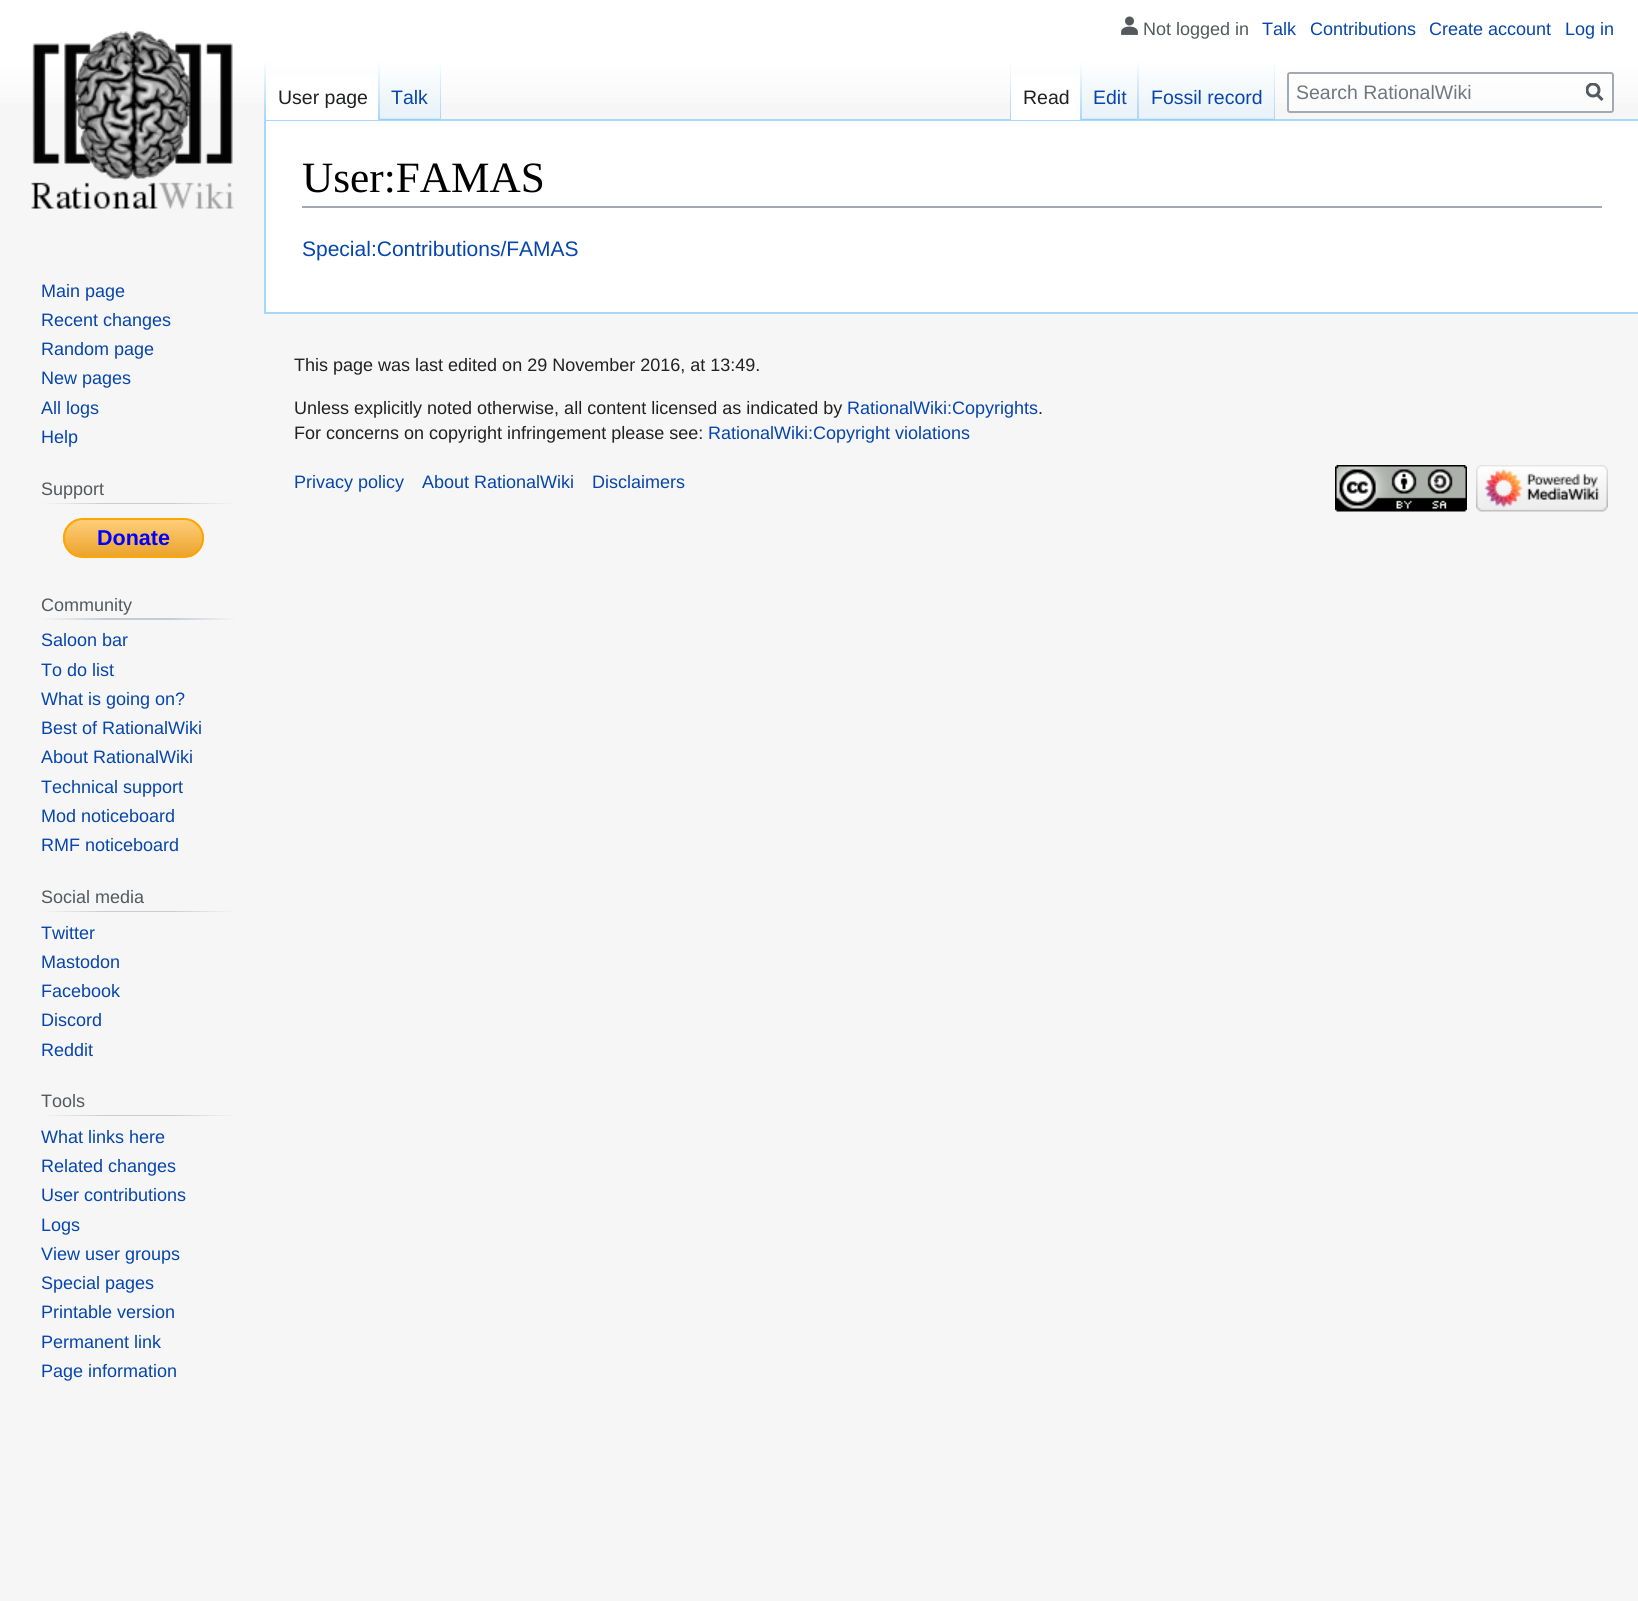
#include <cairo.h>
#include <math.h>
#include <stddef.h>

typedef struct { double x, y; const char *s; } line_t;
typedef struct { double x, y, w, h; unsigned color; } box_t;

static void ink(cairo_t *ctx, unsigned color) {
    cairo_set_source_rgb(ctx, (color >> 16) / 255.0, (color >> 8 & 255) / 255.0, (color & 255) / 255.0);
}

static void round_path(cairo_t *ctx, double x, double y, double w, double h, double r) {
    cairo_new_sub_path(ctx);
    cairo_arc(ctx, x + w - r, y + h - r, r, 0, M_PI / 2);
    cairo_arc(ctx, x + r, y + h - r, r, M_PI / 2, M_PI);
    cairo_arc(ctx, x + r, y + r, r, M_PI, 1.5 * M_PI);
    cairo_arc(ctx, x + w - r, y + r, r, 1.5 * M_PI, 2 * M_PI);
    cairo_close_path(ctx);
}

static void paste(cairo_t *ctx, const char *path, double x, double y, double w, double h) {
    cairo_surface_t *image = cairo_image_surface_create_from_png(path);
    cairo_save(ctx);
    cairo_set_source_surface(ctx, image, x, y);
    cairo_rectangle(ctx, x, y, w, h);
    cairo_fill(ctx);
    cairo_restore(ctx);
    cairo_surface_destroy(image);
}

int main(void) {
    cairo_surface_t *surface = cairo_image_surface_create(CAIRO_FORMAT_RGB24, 1638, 1601);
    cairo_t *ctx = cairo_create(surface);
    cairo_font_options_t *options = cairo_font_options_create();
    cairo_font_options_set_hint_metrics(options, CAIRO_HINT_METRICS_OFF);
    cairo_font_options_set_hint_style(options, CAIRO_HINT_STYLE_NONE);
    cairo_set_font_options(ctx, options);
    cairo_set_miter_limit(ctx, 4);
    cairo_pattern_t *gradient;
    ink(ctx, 0xF6F6F6);
    cairo_paint(ctx);
    gradient = cairo_pattern_create_linear(819, 0, 819, 120);
    cairo_pattern_add_color_stop_rgba(gradient, 0.5, 1, 1, 1, 1);
    cairo_pattern_add_color_stop_rgba(gradient, 1, 0.965, 0.965, 0.965, 1);
    cairo_set_source(ctx, gradient);
    cairo_pattern_destroy(gradient);
    cairo_rectangle(ctx, 0, 0, 1638, 103);
    cairo_fill(ctx);
    paste(ctx, "media/1.png", 1121, 16, 17, 19);
    cairo_select_font_face(ctx, "Liberation Sans", CAIRO_FONT_SLANT_NORMAL, CAIRO_FONT_WEIGHT_NORMAL);
    cairo_set_font_size(ctx, 18);
    ink(ctx, 0x54595D);
    cairo_move_to(ctx, 1143, 35);
    cairo_show_text(ctx, "Not logged in");
    ink(ctx, 0x0645AD);
    {
        static const line_t items[] = {
            {1262, 35, "Talk"},
            {1310, 35, "Contributions"},
            {1429, 35, "Create account"},
            {1565, 35, "Log in"},
        };
        for (size_t i = 0; i < sizeof items / sizeof *items; i++) {
            cairo_move_to(ctx, items[i].x, items[i].y);
            cairo_show_text(ctx, items[i].s);
        }
    }
    {
        static const box_t items[] = {
            {264, 119, 1374, 2, 0xA7D7F9},
            {264, 312, 1374, 2, 0xA7D7F9},
            {264, 119, 2, 195, 0xA7D7F9},
        };
        for (size_t i = 0; i < sizeof items / sizeof *items; i++) {
            ink(ctx, items[i].color);
            cairo_rectangle(ctx, items[i].x, items[i].y, items[i].w, items[i].h);
            cairo_fill(ctx);
        }
    }
    gradient = cairo_pattern_create_linear(265, 60, 265, 120);
    cairo_pattern_add_color_stop_rgba(gradient, 0, 0.655, 0.843, 0.976, 0);
    cairo_pattern_add_color_stop_rgba(gradient, 1, 0.655, 0.843, 0.976, 1);
    cairo_set_source(ctx, gradient);
    cairo_pattern_destroy(gradient);
    cairo_rectangle(ctx, 264, 60, 2, 60);
    cairo_fill(ctx);
    ink(ctx, 0xFFFFFF);
    cairo_rectangle(ctx, 266, 77, 112, 43);
    cairo_fill(ctx);
    gradient = cairo_pattern_create_linear(379, 60, 379, 120);
    cairo_pattern_add_color_stop_rgba(gradient, 0, 1, 1, 1, 1);
    cairo_pattern_add_color_stop_rgba(gradient, 1, 0.655, 0.843, 0.976, 1);
    cairo_set_source(ctx, gradient);
    cairo_pattern_destroy(gradient);
    cairo_rectangle(ctx, 378, 60, 2, 60);
    cairo_fill(ctx);
    cairo_set_font_size(ctx, 19.5);
    ink(ctx, 0x202122);
    cairo_move_to(ctx, 278, 104);
    cairo_show_text(ctx, "User page");
    gradient = cairo_pattern_create_linear(410, 120, 410, 60);
    cairo_pattern_add_color_stop_rgba(gradient, 0, 0.467, 0.757, 0.965, 1);
    cairo_pattern_add_color_stop_rgba(gradient, 0.03, 0.91, 0.949, 0.973, 1);
    cairo_pattern_add_color_stop_rgba(gradient, 1, 1, 1, 1, 1);
    cairo_set_source(ctx, gradient);
    cairo_pattern_destroy(gradient);
    cairo_rectangle(ctx, 380, 69, 61, 51);
    cairo_fill(ctx);
    gradient = cairo_pattern_create_linear(440, 60, 440, 120);
    cairo_pattern_add_color_stop_rgba(gradient, 0, 0.655, 0.843, 0.976, 0);
    cairo_pattern_add_color_stop_rgba(gradient, 1, 0.655, 0.843, 0.976, 1);
    cairo_set_source(ctx, gradient);
    cairo_pattern_destroy(gradient);
    cairo_rectangle(ctx, 440, 60, 1, 60);
    cairo_fill(ctx);
    ink(ctx, 0x0645AD);
    cairo_move_to(ctx, 391, 104);
    cairo_show_text(ctx, "Talk");
    gradient = cairo_pattern_create_linear(1010, 60, 1010, 120);
    cairo_pattern_add_color_stop_rgba(gradient, 0, 0.655, 0.843, 0.976, 0);
    cairo_pattern_add_color_stop_rgba(gradient, 1, 0.655, 0.843, 0.976, 1);
    cairo_set_source(ctx, gradient);
    cairo_pattern_destroy(gradient);
    cairo_rectangle(ctx, 1010, 60, 1, 60);
    cairo_fill(ctx);
    ink(ctx, 0xFFFFFF);
    cairo_rectangle(ctx, 1011, 77, 69, 43);
    cairo_fill(ctx);
    gradient = cairo_pattern_create_linear(1081, 60, 1081, 120);
    cairo_pattern_add_color_stop_rgba(gradient, 0, 1, 1, 1, 1);
    cairo_pattern_add_color_stop_rgba(gradient, 1, 0.655, 0.843, 0.976, 1);
    cairo_set_source(ctx, gradient);
    cairo_pattern_destroy(gradient);
    cairo_rectangle(ctx, 1080, 60, 2, 60);
    cairo_fill(ctx);
    ink(ctx, 0x202122);
    cairo_move_to(ctx, 1023, 104);
    cairo_show_text(ctx, "Read");
    gradient = cairo_pattern_create_linear(1110, 120, 1110, 60);
    cairo_pattern_add_color_stop_rgba(gradient, 0, 0.467, 0.757, 0.965, 1);
    cairo_pattern_add_color_stop_rgba(gradient, 0.03, 0.91, 0.949, 0.973, 1);
    cairo_pattern_add_color_stop_rgba(gradient, 1, 1, 1, 1, 1);
    cairo_set_source(ctx, gradient);
    cairo_pattern_destroy(gradient);
    cairo_rectangle(ctx, 1082, 69, 57, 51);
    cairo_fill(ctx);
    gradient = cairo_pattern_create_linear(1138, 60, 1138, 120);
    cairo_pattern_add_color_stop_rgba(gradient, 0, 0.655, 0.843, 0.976, 0);
    cairo_pattern_add_color_stop_rgba(gradient, 1, 0.655, 0.843, 0.976, 1);
    cairo_set_source(ctx, gradient);
    cairo_pattern_destroy(gradient);
    cairo_rectangle(ctx, 1137, 60, 2, 60);
    cairo_fill(ctx);
    ink(ctx, 0x0645AD);
    cairo_move_to(ctx, 1093, 104);
    cairo_show_text(ctx, "Edit");
    gradient = cairo_pattern_create_linear(1207, 120, 1207, 60);
    cairo_pattern_add_color_stop_rgba(gradient, 0, 0.467, 0.757, 0.965, 1);
    cairo_pattern_add_color_stop_rgba(gradient, 0.03, 0.91, 0.949, 0.973, 1);
    cairo_pattern_add_color_stop_rgba(gradient, 1, 1, 1, 1, 1);
    cairo_set_source(ctx, gradient);
    cairo_pattern_destroy(gradient);
    cairo_rectangle(ctx, 1139, 69, 136, 51);
    cairo_fill(ctx);
    gradient = cairo_pattern_create_linear(1274, 60, 1274, 120);
    cairo_pattern_add_color_stop_rgba(gradient, 0, 0.655, 0.843, 0.976, 0);
    cairo_pattern_add_color_stop_rgba(gradient, 1, 0.655, 0.843, 0.976, 1);
    cairo_set_source(ctx, gradient);
    cairo_pattern_destroy(gradient);
    cairo_rectangle(ctx, 1274, 60, 1, 60);
    cairo_fill(ctx);
    ink(ctx, 0x0645AD);
    cairo_move_to(ctx, 1151, 104);
    cairo_show_text(ctx, "Fossil record");
    cairo_set_source_rgba(ctx, 1, 1, 1, 0.5);
    round_path(ctx, 1288, 73, 325, 39, 2);
    cairo_fill_preserve(ctx);
    ink(ctx, 0xA2A9B1);
    cairo_stroke(ctx);
    ink(ctx, 0x72777D);
    cairo_move_to(ctx, 1296, 99);
    cairo_show_text(ctx, "Search RationalWiki");
    cairo_new_path(ctx);
    cairo_move_to(ctx, 1602.5, 100);
    cairo_line_to(ctx, 1596.5, 94);
    ink(ctx, 0x54595D);
    cairo_set_line_width(ctx, 3);
    cairo_stroke(ctx);
    cairo_save(ctx);
    cairo_rectangle(ctx, 1586, 83, 18, 19);
    cairo_clip(ctx);
    cairo_arc(ctx, 1593, 90, 6, 0, 2 * M_PI);
    cairo_stroke(ctx);
    cairo_restore(ctx);
    paste(ctx, "media/2.png", 31, 31, 203, 178);
    cairo_set_font_size(ctx, 18);
    ink(ctx, 0x0645AD);
    {
        static const line_t items[] = {
            {41, 297, "Main page"},
            {41, 326, "Recent changes"},
            {41, 355, "Random page"},
            {41, 384, "New pages"},
            {41, 414, "All logs"},
            {41, 443, "Help"},
        };
        for (size_t i = 0; i < sizeof items / sizeof *items; i++) {
            cairo_move_to(ctx, items[i].x, items[i].y);
            cairo_show_text(ctx, items[i].s);
        }
    }
    gradient = cairo_pattern_create_linear(41, 503, 237, 503);
    cairo_pattern_add_color_stop_rgba(gradient, 0, 0.965, 0.965, 0.965, 1);
    cairo_pattern_add_color_stop_rgba(gradient, 0.33, 0.784, 0.8, 0.82, 1);
    cairo_pattern_add_color_stop_rgba(gradient, 0.66, 0.784, 0.8, 0.82, 1);
    cairo_pattern_add_color_stop_rgba(gradient, 1, 0.965, 0.965, 0.965, 1);
    cairo_set_source(ctx, gradient);
    cairo_pattern_destroy(gradient);
    cairo_rectangle(ctx, 41, 503, 196, 1);
    cairo_fill(ctx);
    ink(ctx, 0x54595D);
    cairo_move_to(ctx, 41, 495);
    cairo_show_text(ctx, "Support");
    cairo_save(ctx);
    round_path(ctx, 63, 518, 141, 40, 20);
    cairo_clip(ctx);
    gradient = cairo_pattern_create_linear(65, 519, 65, 557);
    cairo_pattern_add_color_stop_rgba(gradient, 0, 1, 0.875, 0.659, 1);
    cairo_pattern_add_color_stop_rgba(gradient, 0.02, 1, 0.808, 0.482, 1);
    cairo_pattern_add_color_stop_rgba(gradient, 0.97, 0.922, 0.643, 0.176, 1);
    cairo_pattern_add_color_stop_rgba(gradient, 1, 0.702, 0.502, 0.169, 1);
    cairo_set_source(ctx, gradient);
    cairo_pattern_destroy(gradient);
    cairo_rectangle(ctx, 63, 519, 141, 38);
    cairo_fill(ctx);
    cairo_restore(ctx);
    round_path(ctx, 64, 519, 139, 38, 19);
    ink(ctx, 0xFFA500);
    cairo_set_line_width(ctx, 2);
    cairo_stroke(ctx);
    cairo_select_font_face(ctx, "Liberation Sans", CAIRO_FONT_SLANT_NORMAL, CAIRO_FONT_WEIGHT_BOLD);
    cairo_set_font_size(ctx, 21.5);
    ink(ctx, 0x0000FF);
    cairo_move_to(ctx, 97, 545);
    cairo_show_text(ctx, "Donate");
    gradient = cairo_pattern_create_linear(41, 619, 237, 619);
    cairo_pattern_add_color_stop_rgba(gradient, 0, 0.965, 0.965, 0.965, 1);
    cairo_pattern_add_color_stop_rgba(gradient, 0.33, 0.784, 0.8, 0.82, 1);
    cairo_pattern_add_color_stop_rgba(gradient, 0.66, 0.784, 0.8, 0.82, 1);
    cairo_pattern_add_color_stop_rgba(gradient, 1, 0.965, 0.965, 0.965, 1);
    cairo_set_source(ctx, gradient);
    cairo_pattern_destroy(gradient);
    cairo_rectangle(ctx, 41, 618, 196, 2);
    cairo_fill(ctx);
    cairo_select_font_face(ctx, "Liberation Sans", CAIRO_FONT_SLANT_NORMAL, CAIRO_FONT_WEIGHT_NORMAL);
    cairo_set_font_size(ctx, 18);
    ink(ctx, 0x54595D);
    cairo_move_to(ctx, 41, 611);
    cairo_show_text(ctx, "Community");
    ink(ctx, 0x0645AD);
    {
        static const line_t items[] = {
            {41, 646, "Saloon bar"},
            {41, 676, "To do list"},
            {41, 705, "What is going on?"},
            {41, 734, "Best of RationalWiki"},
            {41, 763, "About RationalWiki"},
            {41, 793, "Technical support"},
            {41, 822, "Mod noticeboard"},
            {41, 851, "RMF noticeboard"},
        };
        for (size_t i = 0; i < sizeof items / sizeof *items; i++) {
            cairo_move_to(ctx, items[i].x, items[i].y);
            cairo_show_text(ctx, items[i].s);
        }
    }
    gradient = cairo_pattern_create_linear(41, 911, 237, 911);
    cairo_pattern_add_color_stop_rgba(gradient, 0, 0.965, 0.965, 0.965, 1);
    cairo_pattern_add_color_stop_rgba(gradient, 0.33, 0.784, 0.8, 0.82, 1);
    cairo_pattern_add_color_stop_rgba(gradient, 0.66, 0.784, 0.8, 0.82, 1);
    cairo_pattern_add_color_stop_rgba(gradient, 1, 0.965, 0.965, 0.965, 1);
    cairo_set_source(ctx, gradient);
    cairo_pattern_destroy(gradient);
    cairo_rectangle(ctx, 41, 911, 196, 1);
    cairo_fill(ctx);
    ink(ctx, 0x54595D);
    cairo_move_to(ctx, 41, 903);
    cairo_show_text(ctx, "Social media");
    ink(ctx, 0x0645AD);
    {
        static const line_t items[] = {
            {41, 939, "Twitter"},
            {41, 968, "Mastodon"},
            {41, 997, "Facebook"},
            {41, 1026, "Discord"},
            {41, 1056, "Reddit"},
        };
        for (size_t i = 0; i < sizeof items / sizeof *items; i++) {
            cairo_move_to(ctx, items[i].x, items[i].y);
            cairo_show_text(ctx, items[i].s);
        }
    }
    gradient = cairo_pattern_create_linear(41, 1115, 237, 1115);
    cairo_pattern_add_color_stop_rgba(gradient, 0, 0.965, 0.965, 0.965, 1);
    cairo_pattern_add_color_stop_rgba(gradient, 0.33, 0.784, 0.8, 0.82, 1);
    cairo_pattern_add_color_stop_rgba(gradient, 0.66, 0.784, 0.8, 0.82, 1);
    cairo_pattern_add_color_stop_rgba(gradient, 1, 0.965, 0.965, 0.965, 1);
    cairo_set_source(ctx, gradient);
    cairo_pattern_destroy(gradient);
    cairo_rectangle(ctx, 41, 1115, 196, 1);
    cairo_fill(ctx);
    ink(ctx, 0x54595D);
    cairo_move_to(ctx, 41, 1107);
    cairo_show_text(ctx, "Tools");
    ink(ctx, 0x0645AD);
    {
        static const line_t items[] = {
            {41, 1143, "What links here"},
            {41, 1172, "Related changes"},
            {41, 1201, "User contributions"},
            {41, 1231, "Logs"},
            {41, 1260, "View user groups"},
            {41, 1289, "Special pages"},
            {41, 1318, "Printable version"},
            {41, 1348, "Permanent link"},
            {41, 1377, "Page information"},
        };
        for (size_t i = 0; i < sizeof items / sizeof *items; i++) {
            cairo_move_to(ctx, items[i].x, items[i].y);
            cairo_show_text(ctx, items[i].s);
        }
    }
    ink(ctx, 0xFFFFFF);
    cairo_rectangle(ctx, 266, 121, 1372, 191);
    cairo_fill(ctx);
    ink(ctx, 0xA2A9B1);
    cairo_rectangle(ctx, 302, 206, 1300, 2);
    cairo_fill(ctx);
    cairo_select_font_face(ctx, "Liberation Serif", CAIRO_FONT_SLANT_NORMAL, CAIRO_FONT_WEIGHT_NORMAL);
    cairo_set_font_size(ctx, 43.25);
    ink(ctx, 0x000000);
    cairo_move_to(ctx, 302, 192);
    cairo_show_text(ctx, "User:FAMAS");
    cairo_select_font_face(ctx, "Liberation Sans", CAIRO_FONT_SLANT_NORMAL, CAIRO_FONT_WEIGHT_NORMAL);
    cairo_set_font_size(ctx, 21);
    ink(ctx, 0x0645AD);
    cairo_move_to(ctx, 302, 256);
    cairo_show_text(ctx, "Special:Contributions/FAMAS");
    cairo_set_font_size(ctx, 18);
    ink(ctx, 0x202122);
    cairo_move_to(ctx, 294, 371);
    cairo_show_text(ctx, "This page was last edited on 29 November 2016, at 13:49.");
    cairo_move_to(ctx, 294, 414);
    cairo_show_text(ctx, "Unless explicitly noted otherwise, all content licensed as indicated by");
    ink(ctx, 0x0645AD);
    cairo_move_to(ctx, 847, 414);
    cairo_show_text(ctx, "RationalWiki:Copyrights");
    ink(ctx, 0x202122);
    cairo_move_to(ctx, 1038, 414);
    cairo_show_text(ctx, ".");
    cairo_move_to(ctx, 294, 439);
    cairo_show_text(ctx, "For concerns on copyright infringement please see:");
    ink(ctx, 0x0645AD);
    {
        static const line_t items[] = {
            {708, 439, "RationalWiki:Copyright violations"},
            {294, 488, "Privacy policy"},
            {422, 488, "About RationalWiki"},
            {592, 488, "Disclaimers"},
        };
        for (size_t i = 0; i < sizeof items / sizeof *items; i++) {
            cairo_move_to(ctx, items[i].x, items[i].y);
            cairo_show_text(ctx, items[i].s);
        }
    }
    paste(ctx, "media/3.png", 1335, 465, 132, 47);
    paste(ctx, "media/4.png", 1476, 465, 132, 47);
    cairo_surface_write_to_png(surface, "image.png");
    cairo_font_options_destroy(options);
    cairo_destroy(ctx);
    cairo_surface_destroy(surface);
    return 0;
}
